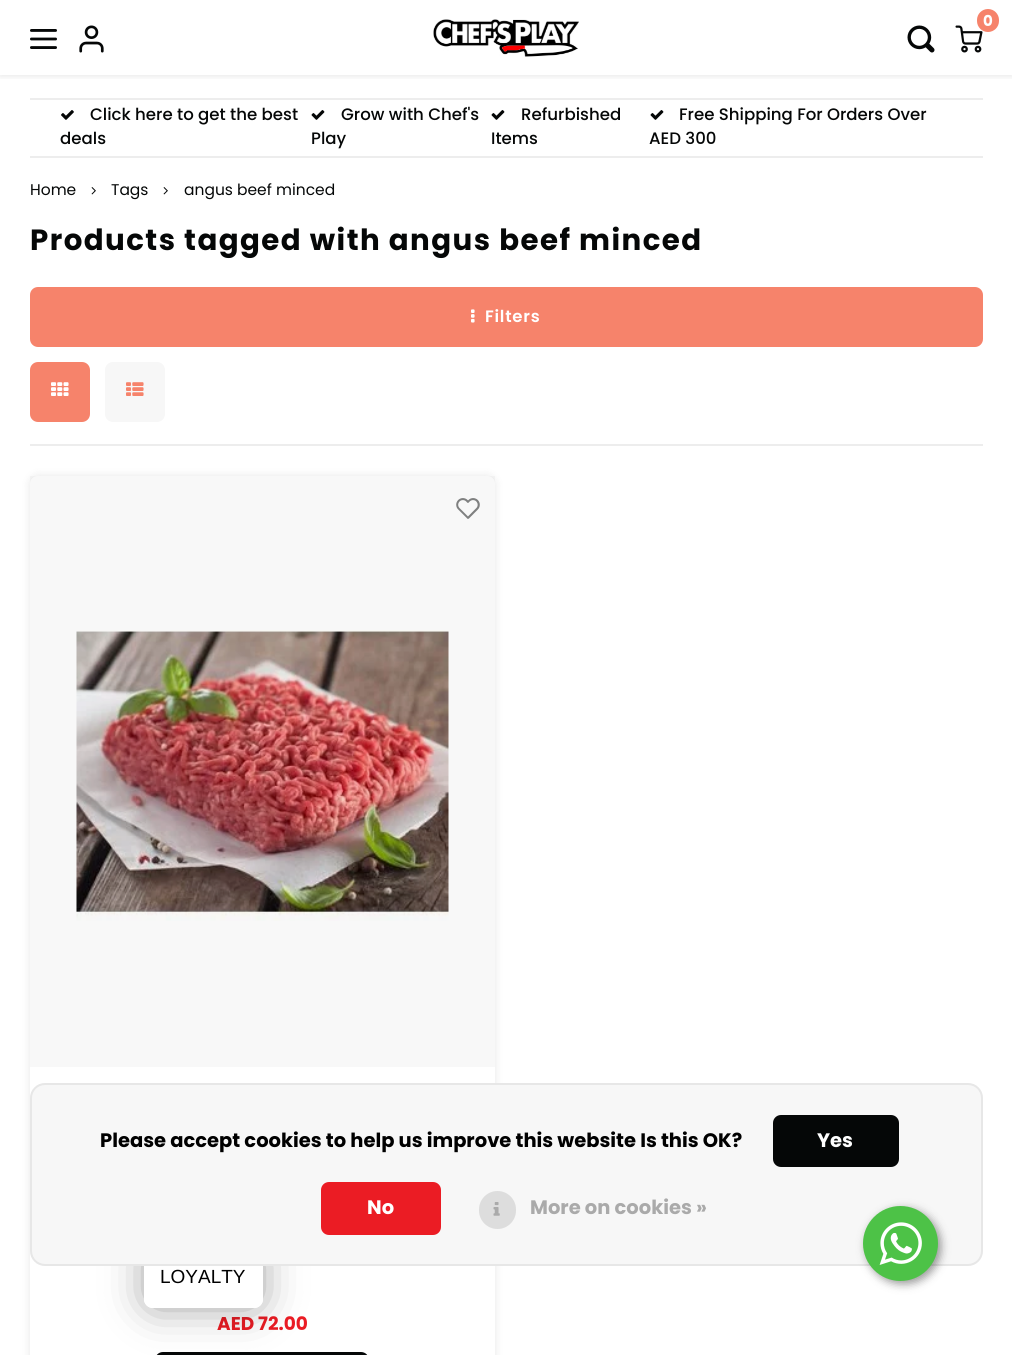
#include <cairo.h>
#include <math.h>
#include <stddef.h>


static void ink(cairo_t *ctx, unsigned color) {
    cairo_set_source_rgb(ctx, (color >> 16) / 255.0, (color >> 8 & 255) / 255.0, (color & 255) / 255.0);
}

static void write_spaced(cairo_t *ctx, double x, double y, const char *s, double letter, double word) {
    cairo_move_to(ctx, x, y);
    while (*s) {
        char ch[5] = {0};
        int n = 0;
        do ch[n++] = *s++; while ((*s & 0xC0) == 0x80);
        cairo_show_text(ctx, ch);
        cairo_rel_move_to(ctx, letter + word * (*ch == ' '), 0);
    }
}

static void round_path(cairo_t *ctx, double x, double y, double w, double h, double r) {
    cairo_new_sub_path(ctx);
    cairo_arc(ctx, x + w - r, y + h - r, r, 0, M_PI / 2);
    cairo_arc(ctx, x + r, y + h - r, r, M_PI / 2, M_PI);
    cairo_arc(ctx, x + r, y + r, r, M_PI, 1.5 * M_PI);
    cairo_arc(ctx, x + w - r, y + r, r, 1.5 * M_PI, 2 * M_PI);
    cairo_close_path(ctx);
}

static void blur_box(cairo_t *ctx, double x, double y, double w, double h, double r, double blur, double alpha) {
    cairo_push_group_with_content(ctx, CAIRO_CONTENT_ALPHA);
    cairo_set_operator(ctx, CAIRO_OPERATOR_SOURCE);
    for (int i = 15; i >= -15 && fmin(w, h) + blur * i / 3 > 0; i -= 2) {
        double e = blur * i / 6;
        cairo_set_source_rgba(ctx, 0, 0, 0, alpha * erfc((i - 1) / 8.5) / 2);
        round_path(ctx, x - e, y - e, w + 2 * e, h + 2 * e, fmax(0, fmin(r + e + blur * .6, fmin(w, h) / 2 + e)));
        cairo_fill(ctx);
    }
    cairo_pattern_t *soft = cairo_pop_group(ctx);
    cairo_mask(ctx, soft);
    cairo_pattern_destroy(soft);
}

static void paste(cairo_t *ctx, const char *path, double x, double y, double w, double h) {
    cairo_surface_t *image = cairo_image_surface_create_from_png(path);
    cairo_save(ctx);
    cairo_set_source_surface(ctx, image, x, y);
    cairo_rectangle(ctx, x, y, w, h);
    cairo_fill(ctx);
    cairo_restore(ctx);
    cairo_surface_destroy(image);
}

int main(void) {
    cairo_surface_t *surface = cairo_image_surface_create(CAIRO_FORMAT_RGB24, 1012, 1355);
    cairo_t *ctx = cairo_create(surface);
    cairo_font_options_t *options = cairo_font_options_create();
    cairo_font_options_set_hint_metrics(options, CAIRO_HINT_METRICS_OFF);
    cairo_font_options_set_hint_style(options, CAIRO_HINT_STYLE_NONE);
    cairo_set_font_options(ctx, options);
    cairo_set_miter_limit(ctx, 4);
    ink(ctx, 0xFFFFFF);
    cairo_paint(ctx);
    cairo_save(ctx);
    cairo_rectangle(ctx, 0, 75, 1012, 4);
    cairo_clip(ctx);
    ink(ctx, 0x000000);
    blur_box(ctx, 0, 2, 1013, 75, 0, 3, 0.08);
    cairo_restore(ctx);
    paste(ctx, "media/1.png", 30, 29, 27, 20);
    paste(ctx, "media/2.png", 79, 25, 25, 28);
    paste(ctx, "media/3.png", 433, 19, 146, 38);
    paste(ctx, "media/4.png", 955, 25, 28, 28);
    ink(ctx, 0xF6836B);
    round_path(ctx, 977, 9, 22, 23, 11);
    cairo_fill(ctx);
    cairo_select_font_face(ctx, "Poppins", CAIRO_FONT_SLANT_NORMAL, CAIRO_FONT_WEIGHT_BOLD);
    cairo_set_font_size(ctx, 15);
    ink(ctx, 0xFFFFFF);
    cairo_move_to(ctx, 983, 26);
    cairo_show_text(ctx, "0");
    paste(ctx, "media/5.png", 907, 25, 28, 28);
    ink(ctx, 0xEDEDED);
    cairo_rectangle(ctx, 30, 98, 953, 2);
    cairo_fill(ctx);
    cairo_rectangle(ctx, 30, 156, 953, 2);
    cairo_fill(ctx);
    paste(ctx, "media/6.png", 61, 110, 13, 10);
    cairo_select_font_face(ctx, "Poppins Medium", CAIRO_FONT_SLANT_NORMAL, CAIRO_FONT_WEIGHT_NORMAL);
    cairo_set_font_size(ctx, 16.6);
    ink(ctx, 0x050707);
    cairo_move_to(ctx, 90, 120);
    cairo_show_text(ctx, "Click here to get the best");
    cairo_move_to(ctx, 60, 144);
    cairo_show_text(ctx, "deals");
    paste(ctx, "media/7.png", 311, 110, 14, 10);
    cairo_move_to(ctx, 341, 120);
    cairo_show_text(ctx, "Grow with Chef's");
    cairo_move_to(ctx, 311, 144);
    cairo_show_text(ctx, "Play");
    paste(ctx, "media/7.png", 491, 110, 14, 10);
    cairo_move_to(ctx, 521, 120);
    cairo_show_text(ctx, "Refurbished");
    cairo_move_to(ctx, 491, 144);
    cairo_show_text(ctx, "Items");
    paste(ctx, "media/7.png", 650, 110, 14, 10);
    cairo_move_to(ctx, 679, 120);
    cairo_show_text(ctx, "Free Shipping For Orders Over");
    cairo_move_to(ctx, 649, 144);
    cairo_show_text(ctx, "AED 300");
    cairo_select_font_face(ctx, "Poppins", CAIRO_FONT_SLANT_NORMAL, CAIRO_FONT_WEIGHT_NORMAL);
    cairo_set_font_size(ctx, 15.5);
    cairo_move_to(ctx, 30, 195);
    cairo_show_text(ctx, "Home");
    paste(ctx, "media/8.png", 91, 187, 5, 8);
    cairo_move_to(ctx, 111, 195);
    cairo_show_text(ctx, "Tags");
    paste(ctx, "media/8.png", 163, 187, 5, 8);
    cairo_move_to(ctx, 184, 195);
    cairo_show_text(ctx, "angus beef minced");
    cairo_select_font_face(ctx, "Poppins", CAIRO_FONT_SLANT_NORMAL, CAIRO_FONT_WEIGHT_BOLD);
    cairo_set_font_size(ctx, 29.25);
    write_spaced(ctx, 30, 250, "Products tagged with angus beef minced", 1.45, 0);
    ink(ctx, 0xEDEDED);
    cairo_rectangle(ctx, 30, 444, 953, 2);
    cairo_fill(ctx);
    ink(ctx, 0xF6836B);
    round_path(ctx, 30, 287, 953, 60, 8);
    cairo_fill(ctx);
    paste(ctx, "media/9.png", 471, 309, 4, 14);
    cairo_select_font_face(ctx, "Poppins SemiBold", CAIRO_FONT_SLANT_NORMAL, CAIRO_FONT_WEIGHT_NORMAL);
    cairo_set_font_size(ctx, 16.5);
    ink(ctx, 0xFFFFFF);
    write_spaced(ctx, 485, 322, "Filters", 0.75, 0);
    ink(ctx, 0xF6836B);
    round_path(ctx, 30, 362, 60, 60, 8);
    cairo_fill(ctx);
    paste(ctx, "media/10.png", 51, 382, 18, 14);
    ink(ctx, 0xF7F7F7);
    round_path(ctx, 105, 362, 60, 60, 8);
    cairo_fill(ctx);
    paste(ctx, "media/11.png", 126, 382, 18, 14);
    cairo_save(ctx);
    cairo_set_fill_rule(ctx, CAIRO_FILL_RULE_EVEN_ODD);
    cairo_new_path(ctx);
    cairo_move_to(ctx, 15, 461);
    cairo_line_to(ctx, 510, 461);
    cairo_line_to(ctx, 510, 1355);
    cairo_line_to(ctx, 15, 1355);
    cairo_close_path(ctx);
    cairo_move_to(ctx, 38, 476);
    cairo_line_to(ctx, 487, 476);
    cairo_curve_to(ctx, 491.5, 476, 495, 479.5, 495, 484);
    cairo_line_to(ctx, 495, 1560);
    cairo_curve_to(ctx, 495, 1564.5, 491.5, 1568, 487, 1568);
    cairo_line_to(ctx, 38, 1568);
    cairo_curve_to(ctx, 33.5, 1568, 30, 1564.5, 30, 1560);
    cairo_line_to(ctx, 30, 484);
    cairo_curve_to(ctx, 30, 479.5, 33.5, 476, 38, 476);
    cairo_close_path(ctx);
    cairo_clip(ctx);
    ink(ctx, 0x000000);
    blur_box(ctx, 30, 476, 465, 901, 8, 4.5, 0.1);
    cairo_restore(ctx);
    paste(ctx, "media/12.png", 76, 630, 373, 291);
    cairo_set_source_rgba(ctx, 0, 0, 0, 0.03);
    cairo_rectangle(ctx, 30, 476, 465, 591);
    cairo_fill(ctx);
    paste(ctx, "media/13.png", 456, 498, 24, 21);
    cairo_select_font_face(ctx, "Poppins", CAIRO_FONT_SLANT_NORMAL, CAIRO_FONT_WEIGHT_BOLD);
    cairo_set_font_size(ctx, 18.5);
    ink(ctx, 0xEB1C24);
    cairo_move_to(ctx, 217, 1330);
    cairo_show_text(ctx, "AED 72.00");
    ink(ctx, 0x050707);
    round_path(ctx, 155, 1352, 214, 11, 8);
    cairo_fill(ctx);
    cairo_save(ctx);
    cairo_set_fill_rule(ctx, CAIRO_FILL_RULE_EVEN_ODD);
    cairo_new_path(ctx);
    cairo_move_to(ctx, 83, 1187);
    cairo_line_to(ctx, 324, 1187);
    cairo_line_to(ctx, 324, 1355);
    cairo_line_to(ctx, 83, 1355);
    cairo_close_path(ctx);
    cairo_move_to(ctx, 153, 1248);
    cairo_line_to(ctx, 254, 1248);
    cairo_curve_to(ctx, 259, 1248, 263, 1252, 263, 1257);
    cairo_line_to(ctx, 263, 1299);
    cairo_curve_to(ctx, 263, 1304, 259, 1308, 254, 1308);
    cairo_line_to(ctx, 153, 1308);
    cairo_curve_to(ctx, 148, 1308, 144, 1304, 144, 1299);
    cairo_line_to(ctx, 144, 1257);
    cairo_curve_to(ctx, 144, 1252, 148, 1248, 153, 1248);
    cairo_close_path(ctx);
    cairo_clip(ctx);
    ink(ctx, 0x000000);
    blur_box(ctx, 152, 1256, 103, 45, 1.5, 22.5, 0.5);
    cairo_restore(ctx);
    cairo_set_source_rgba(ctx, 1, 1, 1, 0.9);
    round_path(ctx, 144, 1248, 119, 60, 9);
    cairo_fill(ctx);
    ink(ctx, 0xF7F7F7);
    round_path(ctx, 30, 1083, 953, 183, 15);
    cairo_fill(ctx);
    round_path(ctx, 31, 1084, 951, 181, 14);
    cairo_set_source_rgba(ctx, 0, 0, 0, 0.07);
    cairo_stroke(ctx);
    cairo_set_font_size(ctx, 19.5);
    ink(ctx, 0x000000);
    cairo_move_to(ctx, 100, 1147);
    cairo_show_text(ctx, "Please accept cookies to help us improve this website Is this OK?");
    ink(ctx, 0x050707);
    round_path(ctx, 773, 1115, 126, 52, 8);
    cairo_fill(ctx);
    ink(ctx, 0xFFFFFF);
    cairo_move_to(ctx, 817, 1147);
    cairo_show_text(ctx, "Yes");
    ink(ctx, 0xEB1C24);
    round_path(ctx, 321, 1182, 120, 53, 8);
    cairo_fill(ctx);
    ink(ctx, 0xFFFFFF);
    cairo_move_to(ctx, 367, 1214);
    cairo_show_text(ctx, "No");
    ink(ctx, 0xDDDDDD);
    round_path(ctx, 479, 1191, 37, 38, 18.5);
    cairo_fill(ctx);
    paste(ctx, "media/14.png", 493, 1202, 7, 14);
    ink(ctx, 0xAAAAAA);
    cairo_move_to(ctx, 530, 1214);
    cairo_show_text(ctx, "More on cookies »");
    cairo_select_font_face(ctx, "Liberation Sans", CAIRO_FONT_SLANT_NORMAL, CAIRO_FONT_WEIGHT_NORMAL);
    cairo_set_font_size(ctx, 19);
    ink(ctx, 0x000000);
    cairo_move_to(ctx, 160, 1283);
    cairo_show_text(ctx, "LOYALTY");
    ink(ctx, 0x000000);
    blur_box(ctx, 866, 1209, 75, 75, 37.5, 4.5, 0.4);
    ink(ctx, 0x4DC247);
    cairo_arc(ctx, 900.5, 1243.5, 37.5, 0, 2 * M_PI);
    cairo_fill(ctx);
    paste(ctx, "media/15.png", 879, 1222, 43, 43);
    cairo_surface_write_to_png(surface, "image.png");
    cairo_font_options_destroy(options);
    cairo_destroy(ctx);
    cairo_surface_destroy(surface);
    return 0;
}
